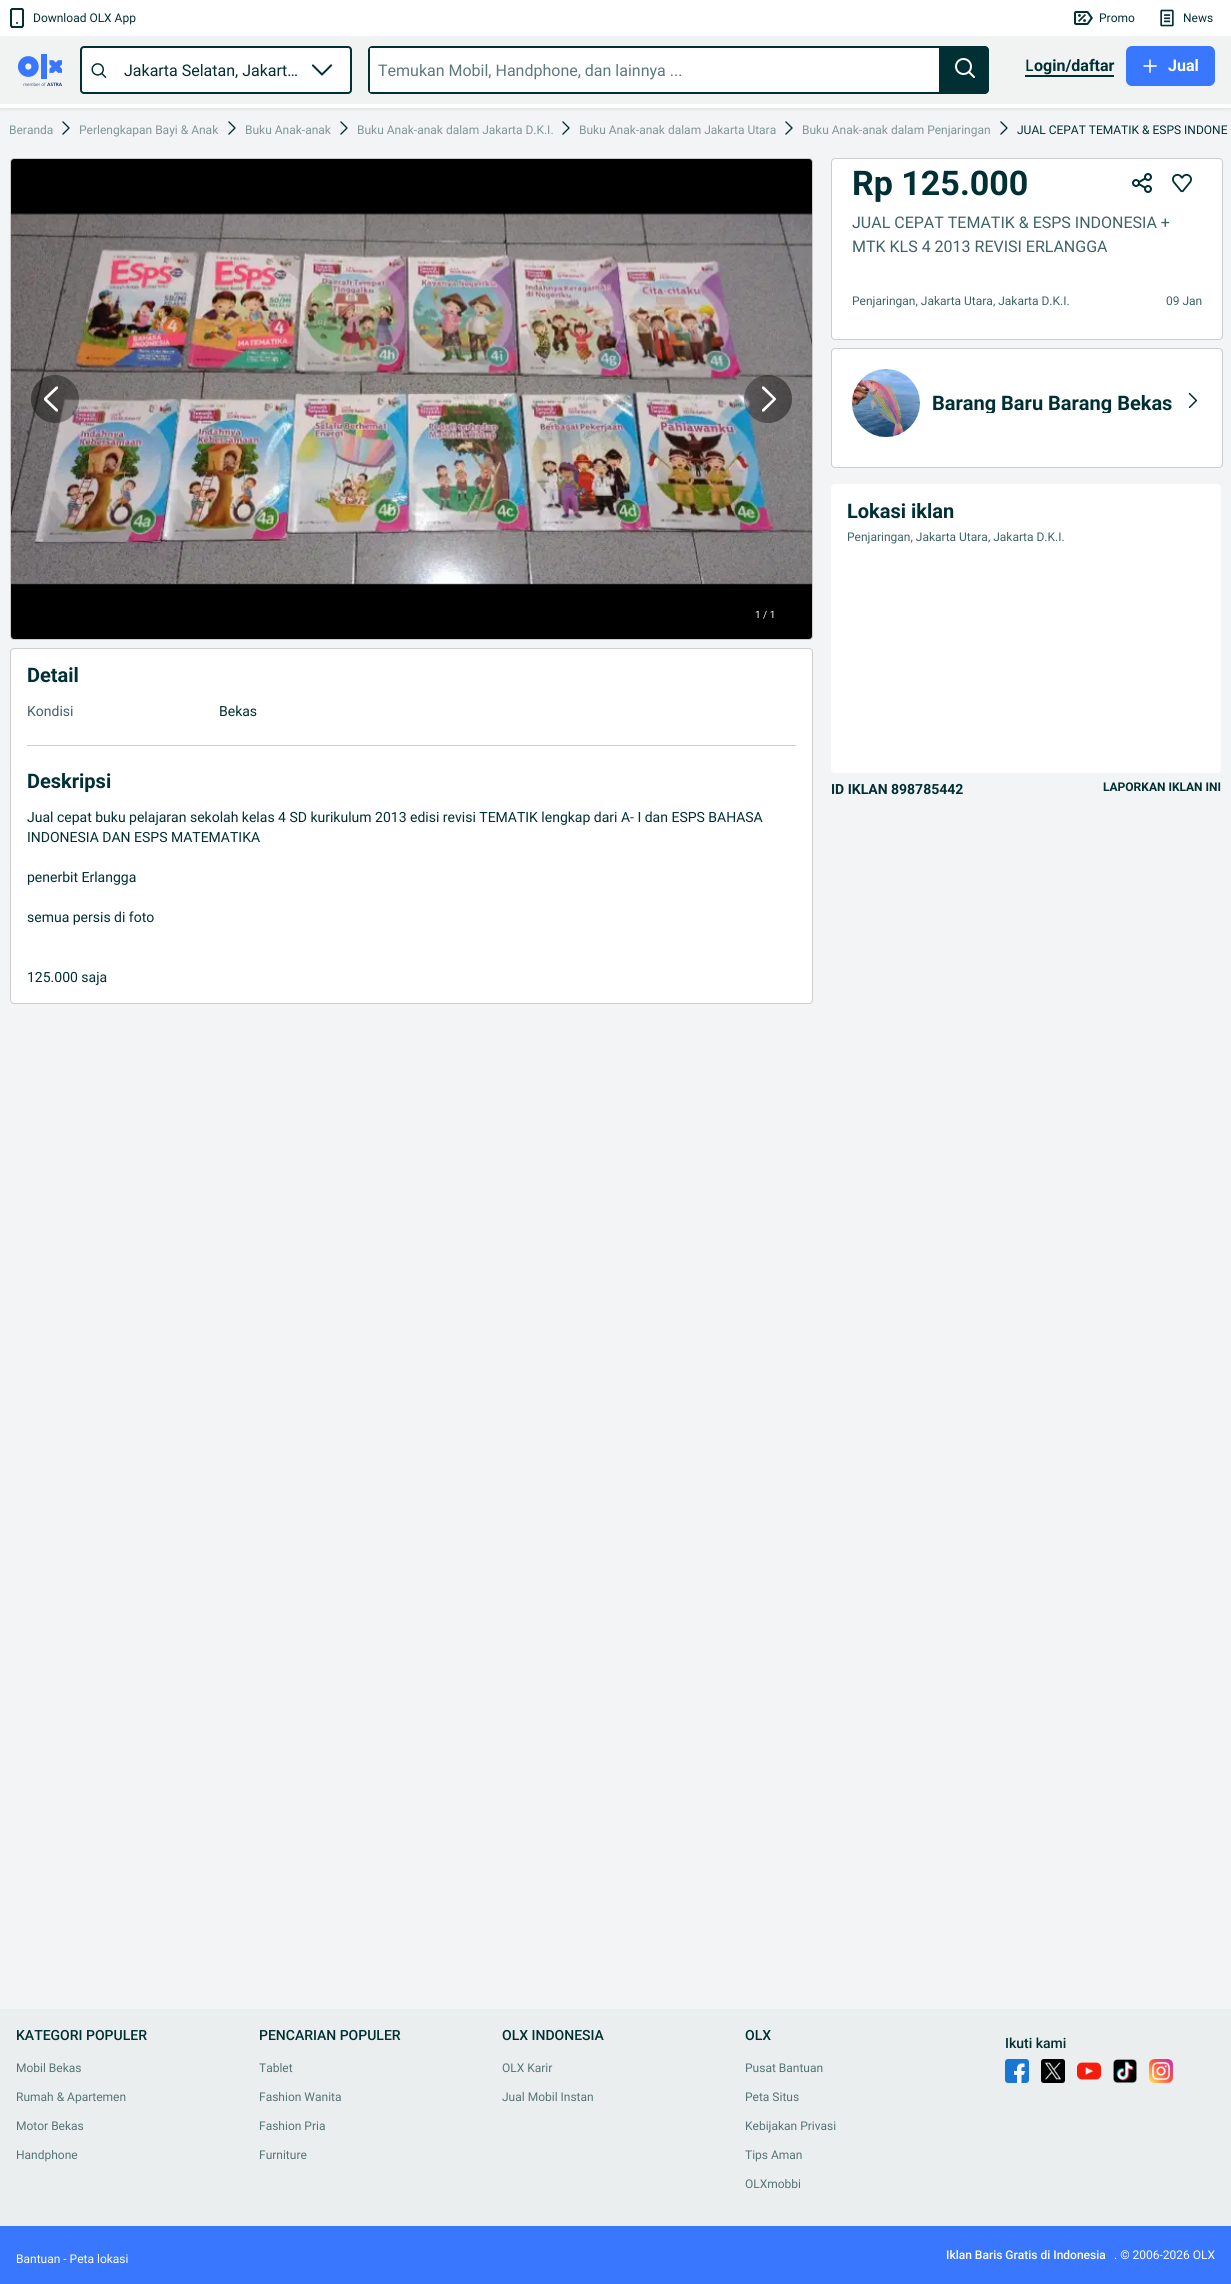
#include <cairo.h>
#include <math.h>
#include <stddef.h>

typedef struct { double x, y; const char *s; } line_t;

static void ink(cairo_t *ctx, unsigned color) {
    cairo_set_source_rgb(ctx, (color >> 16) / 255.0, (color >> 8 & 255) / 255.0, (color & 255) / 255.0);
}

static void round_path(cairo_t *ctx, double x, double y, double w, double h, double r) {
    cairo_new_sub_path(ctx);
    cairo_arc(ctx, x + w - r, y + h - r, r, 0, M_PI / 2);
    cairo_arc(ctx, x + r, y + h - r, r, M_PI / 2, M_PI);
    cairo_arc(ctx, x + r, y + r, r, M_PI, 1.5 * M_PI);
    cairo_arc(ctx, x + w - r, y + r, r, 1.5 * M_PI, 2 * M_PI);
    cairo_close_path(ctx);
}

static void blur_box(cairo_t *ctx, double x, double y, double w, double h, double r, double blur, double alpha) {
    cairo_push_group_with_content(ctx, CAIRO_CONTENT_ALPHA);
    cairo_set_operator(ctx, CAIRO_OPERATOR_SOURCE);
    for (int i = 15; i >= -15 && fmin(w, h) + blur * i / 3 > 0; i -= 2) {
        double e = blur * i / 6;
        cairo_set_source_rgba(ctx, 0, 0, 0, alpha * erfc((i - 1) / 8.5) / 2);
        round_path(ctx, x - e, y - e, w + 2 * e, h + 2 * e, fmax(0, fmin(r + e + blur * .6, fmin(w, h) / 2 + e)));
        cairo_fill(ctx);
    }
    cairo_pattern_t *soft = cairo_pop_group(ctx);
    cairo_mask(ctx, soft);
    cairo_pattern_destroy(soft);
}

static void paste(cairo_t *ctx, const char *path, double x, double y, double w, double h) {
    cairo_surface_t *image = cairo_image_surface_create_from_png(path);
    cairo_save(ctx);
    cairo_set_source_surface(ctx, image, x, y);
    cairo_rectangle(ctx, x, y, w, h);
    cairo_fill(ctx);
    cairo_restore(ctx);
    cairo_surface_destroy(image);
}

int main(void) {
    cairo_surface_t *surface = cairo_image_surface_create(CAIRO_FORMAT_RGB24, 1231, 2284);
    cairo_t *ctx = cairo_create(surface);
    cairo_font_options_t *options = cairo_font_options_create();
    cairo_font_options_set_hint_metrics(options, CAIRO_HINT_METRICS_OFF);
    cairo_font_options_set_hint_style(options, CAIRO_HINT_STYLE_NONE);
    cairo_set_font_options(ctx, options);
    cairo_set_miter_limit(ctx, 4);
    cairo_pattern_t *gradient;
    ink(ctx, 0xF2F4F5);
    cairo_paint(ctx);
    ink(ctx, 0x000000);
    blur_box(ctx, 0, 37, 1231, 72, 0, 2, 0.1);
    ink(ctx, 0xFFFFFF);
    cairo_rectangle(ctx, 0, 104, 1231, 4);
    cairo_fill(ctx);
    cairo_rectangle(ctx, 0, 0, 1231, 36);
    cairo_fill(ctx);
    paste(ctx, "media/1.png", 10, 8, 14, 20);
    cairo_select_font_face(ctx, "Roboto", CAIRO_FONT_SLANT_NORMAL, CAIRO_FONT_WEIGHT_NORMAL);
    cairo_set_font_size(ctx, 12);
    ink(ctx, 0x002F34);
    cairo_move_to(ctx, 33, 22);
    cairo_show_text(ctx, "Download OLX App");
    paste(ctx, "media/2.png", 1074, 11, 19, 14);
    cairo_move_to(ctx, 1099, 22);
    cairo_show_text(ctx, "Promo");
    paste(ctx, "media/3.png", 1160, 9, 14, 18);
    cairo_move_to(ctx, 1183, 22);
    cairo_show_text(ctx, "News");
    ink(ctx, 0xF1F3F3);
    cairo_rectangle(ctx, 0, 36, 1231, 68);
    cairo_fill(ctx);
    paste(ctx, "media/4.png", 17, 54, 46, 33);
    ink(ctx, 0xFFFFFF);
    round_path(ctx, 81, 47, 270, 46, 3);
    cairo_fill_preserve(ctx);
    ink(ctx, 0x002F34);
    cairo_stroke(ctx);
    paste(ctx, "media/5.png", 91, 63, 16, 15);
    cairo_set_font_size(ctx, 16);
    cairo_move_to(ctx, 124, 76);
    cairo_show_text(ctx, "Jakarta Selatan, Jakart…");
    paste(ctx, "media/6.png", 312, 64, 20, 12);
    cairo_new_path(ctx);
    cairo_move_to(ctx, 372, 47);
    cairo_line_to(ctx, 940, 47);
    cairo_line_to(ctx, 940, 93);
    cairo_line_to(ctx, 372, 93);
    cairo_curve_to(ctx, 370.5, 93, 369, 91.5, 369, 90);
    cairo_line_to(ctx, 369, 50);
    cairo_curve_to(ctx, 369, 48.5, 370.5, 47, 372, 47);
    cairo_close_path(ctx);
    cairo_stroke(ctx);
    ink(ctx, 0xFFFFFF);
    cairo_rectangle(ctx, 370, 48, 569, 44);
    cairo_fill(ctx);
    ink(ctx, 0x5C7A7D);
    cairo_move_to(ctx, 378, 76);
    cairo_show_text(ctx, "Temukan Mobil, Handphone, dan lainnya ...");
    ink(ctx, 0x002F34);
    cairo_new_path(ctx);
    cairo_move_to(ctx, 941, 46);
    cairo_line_to(ctx, 985, 46);
    cairo_curve_to(ctx, 987, 46, 989, 48, 989, 50);
    cairo_line_to(ctx, 989, 90);
    cairo_curve_to(ctx, 989, 92, 987, 94, 985, 94);
    cairo_line_to(ctx, 941, 94);
    cairo_close_path(ctx);
    cairo_fill(ctx);
    paste(ctx, "media/7.png", 955, 58, 20, 20);
    cairo_rectangle(ctx, 1025, 75, 89, 2);
    cairo_fill(ctx);
    cairo_select_font_face(ctx, "Noto Sans Medium", CAIRO_FONT_SLANT_NORMAL, CAIRO_FONT_WEIGHT_NORMAL);
    cairo_move_to(ctx, 1025, 71);
    cairo_show_text(ctx, "L");
    cairo_select_font_face(ctx, "Roboto", CAIRO_FONT_SLANT_NORMAL, CAIRO_FONT_WEIGHT_BOLD);
    cairo_move_to(ctx, 1034, 71);
    cairo_show_text(ctx, "ogin/daftar");
    ink(ctx, 0x3A77FF);
    round_path(ctx, 1126, 46, 89, 40, 6);
    cairo_fill(ctx);
    paste(ctx, "media/8.png", 1143, 59, 14, 14);
    ink(ctx, 0xFFFFFF);
    cairo_move_to(ctx, 1168, 71);
    cairo_show_text(ctx, "Jual");
    cairo_select_font_face(ctx, "Roboto", CAIRO_FONT_SLANT_NORMAL, CAIRO_FONT_WEIGHT_NORMAL);
    cairo_set_font_size(ctx, 12);
    ink(ctx, 0x7F9799);
    cairo_move_to(ctx, 9, 134);
    cairo_show_text(ctx, "Beranda");
    paste(ctx, "media/9.png", 62, 121, 8, 14);
    cairo_move_to(ctx, 79, 134);
    cairo_show_text(ctx, "Perlengkapan Bayi & Anak");
    paste(ctx, "media/9.png", 228, 121, 8, 14);
    cairo_move_to(ctx, 245, 134);
    cairo_show_text(ctx, "Buku Anak-anak");
    paste(ctx, "media/9.png", 340, 121, 8, 14);
    cairo_move_to(ctx, 357, 134);
    cairo_show_text(ctx, "Buku Anak-anak dalam Jakarta D.K.I.");
    paste(ctx, "media/9.png", 562, 121, 8, 14);
    cairo_move_to(ctx, 579, 134);
    cairo_show_text(ctx, "Buku Anak-anak dalam Jakarta Utara");
    paste(ctx, "media/9.png", 785, 121, 8, 14);
    cairo_move_to(ctx, 802, 134);
    cairo_show_text(ctx, "Buku Anak-anak dalam Penjaringan");
    paste(ctx, "media/9.png", 1000, 121, 8, 14);
    ink(ctx, 0x002F34);
    cairo_move_to(ctx, 1017, 134);
    cairo_show_text(ctx, "JUAL CEPAT TEMATIK & ESPS INDONE");
    ink(ctx, 0xFFFFFF);
    round_path(ctx, 10, 158, 803, 482, 4);
    cairo_fill(ctx);
    round_path(ctx, 10.5, 158.5, 802, 481, 3.5);
    cairo_set_source_rgba(ctx, 0.055, 0.016, 0.02, 0.2);
    cairo_set_line_width(ctx, 1);
    cairo_stroke(ctx);
    ink(ctx, 0x000000);
    round_path(ctx, 11, 159, 801, 480, 3);
    cairo_fill(ctx);
    paste(ctx, "media/10.png", 11, 213, 801, 372);
    cairo_set_source_rgba(ctx, 0, 0, 0, 0.32);
    cairo_arc(ctx, 55, 399, 24, 0, 2 * M_PI);
    cairo_fill(ctx);
    gradient = cairo_pattern_create_linear(79, 399, 31, 399);
    cairo_pattern_add_color_stop_rgba(gradient, 0, 0, 0, 0, 0);
    cairo_pattern_add_color_stop_rgba(gradient, 1, 0, 0, 0, 0.2);
    cairo_set_source(ctx, gradient);
    cairo_pattern_destroy(gradient);
    cairo_arc(ctx, 55, 399, 24, 0, 2 * M_PI);
    cairo_fill(ctx);
    ink(ctx, 0xFFFFFF);
    cairo_set_fill_rule(ctx, CAIRO_FILL_RULE_EVEN_ODD);
    cairo_new_path(ctx);
    cairo_move_to(ctx, 56, 386.5);
    cairo_line_to(ctx, 44, 398);
    cairo_line_to(ctx, 44, 400);
    cairo_line_to(ctx, 56, 411.5);
    cairo_line_to(ctx, 58, 411.5);
    cairo_line_to(ctx, 58, 409.5);
    cairo_line_to(ctx, 47, 399);
    cairo_line_to(ctx, 58, 388.5);
    cairo_line_to(ctx, 58, 386.5);
    cairo_close_path(ctx);
    cairo_fill(ctx);
    cairo_set_source_rgba(ctx, 0, 0, 0, 0.32);
    cairo_arc(ctx, 768, 399, 24, 0, 2 * M_PI);
    cairo_fill(ctx);
    gradient = cairo_pattern_create_linear(744, 399, 792, 399);
    cairo_pattern_add_color_stop_rgba(gradient, 0, 0, 0, 0, 0);
    cairo_pattern_add_color_stop_rgba(gradient, 1, 0, 0, 0, 0.2);
    cairo_set_source(ctx, gradient);
    cairo_pattern_destroy(gradient);
    cairo_arc(ctx, 768, 399, 24, 0, 2 * M_PI);
    cairo_fill(ctx);
    ink(ctx, 0xFFFFFF);
    cairo_new_path(ctx);
    cairo_move_to(ctx, 762, 386.5);
    cairo_line_to(ctx, 762, 388.5);
    cairo_line_to(ctx, 773, 399);
    cairo_line_to(ctx, 762, 409.5);
    cairo_line_to(ctx, 762, 411.5);
    cairo_line_to(ctx, 764, 411.5);
    cairo_line_to(ctx, 776, 399.5);
    cairo_line_to(ctx, 776, 398.5);
    cairo_line_to(ctx, 764, 386.5);
    cairo_close_path(ctx);
    cairo_fill(ctx);
    cairo_set_font_size(ctx, 10);
    cairo_move_to(ctx, 755, 618);
    cairo_show_text(ctx, "1 / 1");
    round_path(ctx, 10, 648, 803, 356, 4);
    cairo_fill(ctx);
    round_path(ctx, 10.5, 648.5, 802, 355, 3.5);
    cairo_set_source_rgba(ctx, 0.055, 0.016, 0.02, 0.2);
    cairo_stroke(ctx);
    cairo_select_font_face(ctx, "Roboto", CAIRO_FONT_SLANT_NORMAL, CAIRO_FONT_WEIGHT_BOLD);
    cairo_set_font_size(ctx, 20);
    ink(ctx, 0x002F34);
    cairo_move_to(ctx, 27, 682);
    cairo_show_text(ctx, "Detail");
    cairo_select_font_face(ctx, "Roboto", CAIRO_FONT_SLANT_NORMAL, CAIRO_FONT_WEIGHT_NORMAL);
    cairo_set_font_size(ctx, 14);
    ink(ctx, 0x406367);
    cairo_move_to(ctx, 27, 716);
    cairo_show_text(ctx, "Kondisi");
    ink(ctx, 0x002F34);
    cairo_move_to(ctx, 219, 716);
    cairo_show_text(ctx, "Bekas");
    ink(ctx, 0xCFCDCD);
    cairo_rectangle(ctx, 27, 745, 769, 1);
    cairo_fill(ctx);
    cairo_select_font_face(ctx, "Roboto", CAIRO_FONT_SLANT_NORMAL, CAIRO_FONT_WEIGHT_BOLD);
    cairo_set_font_size(ctx, 20);
    ink(ctx, 0x002F34);
    cairo_move_to(ctx, 27, 788);
    cairo_show_text(ctx, "Deskripsi");
    cairo_select_font_face(ctx, "Roboto", CAIRO_FONT_SLANT_NORMAL, CAIRO_FONT_WEIGHT_NORMAL);
    cairo_set_font_size(ctx, 14);
    {
        static const line_t items[] = {
            {27, 822, "Jual cepat buku pelajaran sekolah kelas 4 SD kurikulum 2013 edisi revisi TEMATIK lengkap dari A- I dan ESPS BAHASA"},
            {27, 842, "INDONESIA DAN ESPS MATEMATIKA"},
            {27, 882, "penerbit Erlangga"},
            {27, 922, "semua persis di foto"},
            {27, 982, "125.000 saja"},
        };
        for (size_t i = 0; i < sizeof items / sizeof *items; i++) {
            cairo_move_to(ctx, items[i].x, items[i].y);
            cairo_show_text(ctx, items[i].s);
        }
    }
    ink(ctx, 0xFFFFFF);
    round_path(ctx, 831, 158, 392, 182, 4);
    cairo_fill(ctx);
    round_path(ctx, 831.5, 158.5, 391, 181, 3.5);
    cairo_set_source_rgba(ctx, 0.055, 0.016, 0.02, 0.2);
    cairo_stroke(ctx);
    cairo_select_font_face(ctx, "Roboto", CAIRO_FONT_SLANT_NORMAL, CAIRO_FONT_WEIGHT_BOLD);
    cairo_set_font_size(ctx, 34);
    ink(ctx, 0x002F34);
    cairo_move_to(ctx, 852, 195);
    cairo_show_text(ctx, "Rp 125.000");
    paste(ctx, "media/11.png", 1132, 173, 20, 20);
    paste(ctx, "media/12.png", 1172, 173, 20, 20);
    cairo_select_font_face(ctx, "Roboto", CAIRO_FONT_SLANT_NORMAL, CAIRO_FONT_WEIGHT_NORMAL);
    cairo_set_font_size(ctx, 16);
    ink(ctx, 0x406367);
    cairo_move_to(ctx, 852, 228);
    cairo_show_text(ctx, "JUAL CEPAT TEMATIK & ESPS INDONESIA +");
    cairo_move_to(ctx, 852, 252);
    cairo_show_text(ctx, "MTK KLS 4 2013 REVISI ERLANGGA");
    cairo_set_font_size(ctx, 12);
    cairo_move_to(ctx, 852, 305);
    cairo_show_text(ctx, "Penjaringan, Jakarta Utara, Jakarta D.K.I.");
    cairo_move_to(ctx, 1166, 305);
    cairo_show_text(ctx, "09 Jan");
    ink(ctx, 0xFFFFFF);
    round_path(ctx, 831, 348, 392, 120, 4);
    cairo_fill(ctx);
    round_path(ctx, 831.5, 348.5, 391, 119, 3.5);
    cairo_set_source_rgba(ctx, 0.055, 0.016, 0.02, 0.2);
    cairo_stroke(ctx);
    paste(ctx, "media/13.png", 852, 369, 68, 68);
    cairo_save(ctx);
    cairo_set_fill_rule(ctx, CAIRO_FILL_RULE_WINDING);
    cairo_rectangle(ctx, 932, 393, 270, 20);
    cairo_clip(ctx);
    cairo_select_font_face(ctx, "Roboto", CAIRO_FONT_SLANT_NORMAL, CAIRO_FONT_WEIGHT_BOLD);
    cairo_set_font_size(ctx, 20);
    ink(ctx, 0x002F34);
    cairo_move_to(ctx, 932, 410);
    cairo_show_text(ctx, "Barang Baru Barang Bekas");
    cairo_restore(ctx);
    paste(ctx, "media/14.png", 1188, 393, 10, 15);
    ink(ctx, 0xFFFFFF);
    round_path(ctx, 831, 484, 390, 289, 4);
    cairo_fill(ctx);
    cairo_select_font_face(ctx, "Roboto", CAIRO_FONT_SLANT_NORMAL, CAIRO_FONT_WEIGHT_BOLD);
    cairo_set_font_size(ctx, 20);
    ink(ctx, 0x002F34);
    cairo_move_to(ctx, 847, 518);
    cairo_show_text(ctx, "Lokasi iklan");
    cairo_select_font_face(ctx, "Roboto", CAIRO_FONT_SLANT_NORMAL, CAIRO_FONT_WEIGHT_NORMAL);
    cairo_set_font_size(ctx, 12);
    ink(ctx, 0x406367);
    cairo_move_to(ctx, 847, 541);
    cairo_show_text(ctx, "Penjaringan, Jakarta Utara, Jakarta D.K.I.");
    cairo_select_font_face(ctx, "Roboto", CAIRO_FONT_SLANT_NORMAL, CAIRO_FONT_WEIGHT_BOLD);
    cairo_set_font_size(ctx, 14);
    ink(ctx, 0x002F34);
    cairo_move_to(ctx, 831, 794);
    cairo_show_text(ctx, "ID IKLAN 898785442");
    cairo_set_font_size(ctx, 12);
    cairo_move_to(ctx, 1103, 791);
    cairo_show_text(ctx, "LAPORKAN IKLAN INI");
    ink(ctx, 0xEBEEEF);
    cairo_rectangle(ctx, 0, 2009, 1231, 217);
    cairo_fill(ctx);
    cairo_select_font_face(ctx, "Roboto Medium", CAIRO_FONT_SLANT_NORMAL, CAIRO_FONT_WEIGHT_NORMAL);
    cairo_set_font_size(ctx, 14);
    ink(ctx, 0x002F34);
    cairo_move_to(ctx, 16, 2040);
    cairo_show_text(ctx, "KATEGORI POPULER");
    cairo_select_font_face(ctx, "Roboto", CAIRO_FONT_SLANT_NORMAL, CAIRO_FONT_WEIGHT_NORMAL);
    cairo_set_font_size(ctx, 12);
    ink(ctx, 0x557477);
    {
        static const line_t items[] = {
            {16, 2072, "Mobil Bekas"},
            {16, 2101, "Rumah & Apartemen"},
            {16, 2130, "Motor Bekas"},
            {16, 2159, "Handphone"},
        };
        for (size_t i = 0; i < sizeof items / sizeof *items; i++) {
            cairo_move_to(ctx, items[i].x, items[i].y);
            cairo_show_text(ctx, items[i].s);
        }
    }
    cairo_select_font_face(ctx, "Roboto Medium", CAIRO_FONT_SLANT_NORMAL, CAIRO_FONT_WEIGHT_NORMAL);
    cairo_set_font_size(ctx, 14);
    ink(ctx, 0x002F34);
    cairo_move_to(ctx, 259, 2040);
    cairo_show_text(ctx, "PENCARIAN POPULER");
    cairo_select_font_face(ctx, "Roboto", CAIRO_FONT_SLANT_NORMAL, CAIRO_FONT_WEIGHT_NORMAL);
    cairo_set_font_size(ctx, 12);
    ink(ctx, 0x557477);
    {
        static const line_t items[] = {
            {259, 2072, "Tablet"},
            {259, 2101, "Fashion Wanita"},
            {259, 2130, "Fashion Pria"},
            {259, 2159, "Furniture"},
        };
        for (size_t i = 0; i < sizeof items / sizeof *items; i++) {
            cairo_move_to(ctx, items[i].x, items[i].y);
            cairo_show_text(ctx, items[i].s);
        }
    }
    cairo_select_font_face(ctx, "Roboto Medium", CAIRO_FONT_SLANT_NORMAL, CAIRO_FONT_WEIGHT_NORMAL);
    cairo_set_font_size(ctx, 14);
    ink(ctx, 0x002F34);
    cairo_move_to(ctx, 502, 2040);
    cairo_show_text(ctx, "OLX INDONESIA");
    cairo_select_font_face(ctx, "Roboto", CAIRO_FONT_SLANT_NORMAL, CAIRO_FONT_WEIGHT_NORMAL);
    cairo_set_font_size(ctx, 12);
    ink(ctx, 0x557477);
    cairo_move_to(ctx, 502, 2072);
    cairo_show_text(ctx, "OLX Karir");
    cairo_move_to(ctx, 502, 2101);
    cairo_show_text(ctx, "Jual Mobil Instan");
    cairo_select_font_face(ctx, "Roboto Medium", CAIRO_FONT_SLANT_NORMAL, CAIRO_FONT_WEIGHT_NORMAL);
    cairo_set_font_size(ctx, 14);
    ink(ctx, 0x002F34);
    cairo_move_to(ctx, 745, 2040);
    cairo_show_text(ctx, "OLX");
    cairo_select_font_face(ctx, "Roboto", CAIRO_FONT_SLANT_NORMAL, CAIRO_FONT_WEIGHT_NORMAL);
    cairo_set_font_size(ctx, 12);
    ink(ctx, 0x557477);
    {
        static const line_t items[] = {
            {745, 2072, "Pusat Bantuan"},
            {745, 2101, "Peta Situs"},
            {745, 2130, "Kebijakan Privasi"},
            {745, 2159, "Tips Aman"},
            {745, 2188, "OLXmobbi"},
        };
        for (size_t i = 0; i < sizeof items / sizeof *items; i++) {
            cairo_move_to(ctx, items[i].x, items[i].y);
            cairo_show_text(ctx, items[i].s);
        }
    }
    cairo_select_font_face(ctx, "Roboto Medium", CAIRO_FONT_SLANT_NORMAL, CAIRO_FONT_WEIGHT_NORMAL);
    cairo_set_font_size(ctx, 14);
    ink(ctx, 0x002F34);
    cairo_move_to(ctx, 1005, 2048);
    cairo_show_text(ctx, "Ikuti kami");
    paste(ctx, "media/15.png", 1005, 2059, 24, 24);
    paste(ctx, "media/16.png", 1041, 2059, 24, 24);
    paste(ctx, "media/17.png", 1077, 2062, 24, 18);
    paste(ctx, "media/18.png", 1113, 2059, 24, 24);
    paste(ctx, "media/19.png", 1149, 2059, 24, 24);
    ink(ctx, 0x3A77FF);
    cairo_rectangle(ctx, 0, 2226, 1231, 58);
    cairo_fill(ctx);
    cairo_select_font_face(ctx, "Roboto", CAIRO_FONT_SLANT_NORMAL, CAIRO_FONT_WEIGHT_NORMAL);
    cairo_set_font_size(ctx, 12);
    ink(ctx, 0xFFFFFF);
    cairo_move_to(ctx, 16, 2263);
    cairo_show_text(ctx, "Bantuan - Peta lokasi");
    cairo_select_font_face(ctx, "Roboto Medium", CAIRO_FONT_SLANT_NORMAL, CAIRO_FONT_WEIGHT_NORMAL);
    cairo_move_to(ctx, 946, 2259);
    cairo_show_text(ctx, "Iklan Baris Gratis di Indonesia");
    cairo_select_font_face(ctx, "Roboto", CAIRO_FONT_SLANT_NORMAL, CAIRO_FONT_WEIGHT_NORMAL);
    cairo_move_to(ctx, 1114, 2259);
    cairo_show_text(ctx, ". © 2006-2026 OLX");
    cairo_surface_write_to_png(surface, "image.png");
    cairo_font_options_destroy(options);
    cairo_destroy(ctx);
    cairo_surface_destroy(surface);
    return 0;
}
